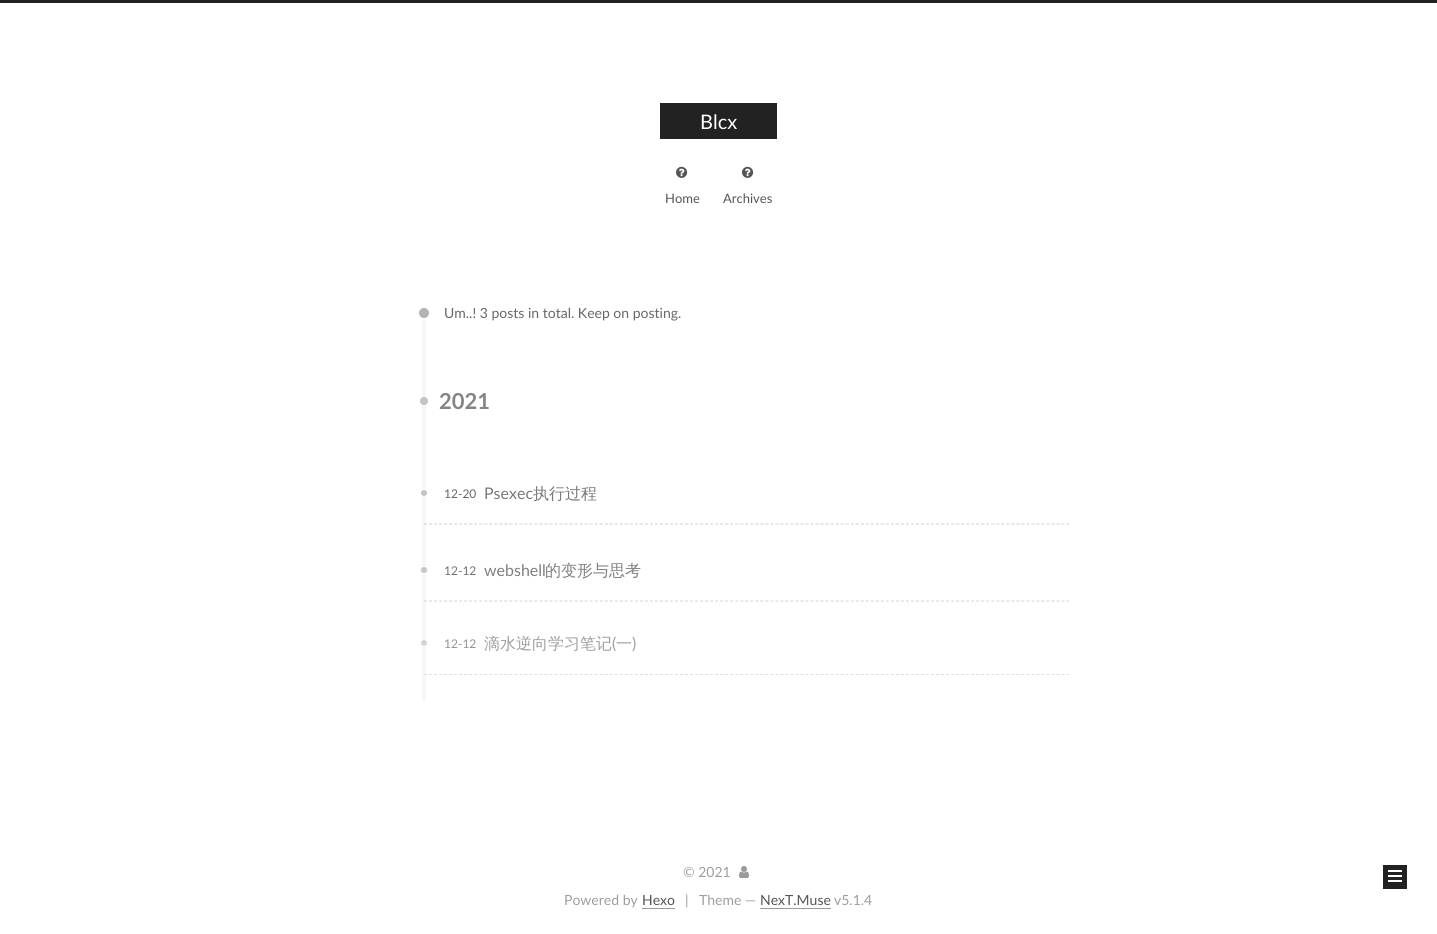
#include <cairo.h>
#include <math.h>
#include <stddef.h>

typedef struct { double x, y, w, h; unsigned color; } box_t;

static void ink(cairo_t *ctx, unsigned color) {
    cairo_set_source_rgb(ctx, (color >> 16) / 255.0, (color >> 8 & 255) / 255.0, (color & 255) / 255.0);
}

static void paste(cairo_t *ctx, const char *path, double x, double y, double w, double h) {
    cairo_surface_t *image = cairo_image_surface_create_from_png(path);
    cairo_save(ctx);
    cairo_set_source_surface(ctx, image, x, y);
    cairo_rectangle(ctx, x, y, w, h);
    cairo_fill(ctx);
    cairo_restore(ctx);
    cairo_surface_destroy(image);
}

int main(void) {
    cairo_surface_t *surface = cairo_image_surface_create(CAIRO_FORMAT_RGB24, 1437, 934);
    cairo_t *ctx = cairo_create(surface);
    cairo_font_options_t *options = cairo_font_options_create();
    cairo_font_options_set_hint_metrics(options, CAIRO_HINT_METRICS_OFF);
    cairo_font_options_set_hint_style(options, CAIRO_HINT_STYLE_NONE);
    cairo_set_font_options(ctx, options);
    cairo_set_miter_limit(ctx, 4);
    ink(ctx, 0xFFFFFF);
    cairo_paint(ctx);
    ink(ctx, 0x222222);
    cairo_rectangle(ctx, 0, 0, 1437, 3);
    cairo_fill(ctx);
    cairo_rectangle(ctx, 660, 103, 117, 36);
    cairo_fill(ctx);
    cairo_select_font_face(ctx, "Lato", CAIRO_FONT_SLANT_NORMAL, CAIRO_FONT_WEIGHT_NORMAL);
    cairo_set_font_size(ctx, 20);
    ink(ctx, 0xFFFFFF);
    cairo_move_to(ctx, 700, 129);
    cairo_show_text(ctx, "Blcx");
    paste(ctx, "media/1.png", 676, 166, 12, 12);
    cairo_set_font_size(ctx, 13);
    ink(ctx, 0x555555);
    cairo_move_to(ctx, 665, 203);
    cairo_show_text(ctx, "Home");
    paste(ctx, "media/1.png", 742, 166, 12, 12);
    cairo_move_to(ctx, 723, 203);
    cairo_show_text(ctx, "Archives");
    ink(ctx, 0xF6F6F6);
    cairo_rectangle(ctx, 422, 316, 4, 385);
    cairo_fill(ctx);
    ink(ctx, 0xB3B3B3);
    cairo_arc(ctx, 424, 313, 5.5, 0, 2 * M_PI);
    cairo_fill_preserve(ctx);
    ink(ctx, 0xFFFFFF);
    cairo_set_line_width(ctx, 1);
    cairo_stroke(ctx);
    cairo_set_font_size(ctx, 14);
    ink(ctx, 0x676767);
    cairo_move_to(ctx, 444, 318);
    cairo_show_text(ctx, "Um..! 3 posts in total. Keep on posting.");
    ink(ctx, 0xC3C3C3);
    cairo_new_path(ctx);
    cairo_arc(ctx, 424, 401, 4, 0, 2 * M_PI);
    cairo_fill(ctx);
    cairo_select_font_face(ctx, "Lato", CAIRO_FONT_SLANT_NORMAL, CAIRO_FONT_WEIGHT_BOLD);
    cairo_set_font_size(ctx, 22);
    ink(ctx, 0x858585);
    cairo_move_to(ctx, 439, 409);
    cairo_show_text(ctx, "2021");
    cairo_new_path(ctx);
    cairo_move_to(ctx, 424, 524);
    cairo_line_to(ctx, 1069, 524);
    ink(ctx, 0xD2D2D2);
    cairo_set_dash(ctx, (double[]){3, 2.02}, 2, 0);
    cairo_stroke(ctx);
    ink(ctx, 0xC3C3C3);
    cairo_arc(ctx, 424, 493, 3.5, 0, 2 * M_PI);
    cairo_fill_preserve(ctx);
    ink(ctx, 0xFFFFFF);
    cairo_set_dash(ctx, NULL, 0, 0);
    cairo_stroke(ctx);
    cairo_select_font_face(ctx, "Lato", CAIRO_FONT_SLANT_NORMAL, CAIRO_FONT_WEIGHT_NORMAL);
    cairo_set_font_size(ctx, 12);
    ink(ctx, 0x676767);
    cairo_move_to(ctx, 444, 498);
    cairo_show_text(ctx, "12-20");
    cairo_set_font_size(ctx, 16);
    ink(ctx, 0x797979);
    cairo_move_to(ctx, 484, 499);
    cairo_show_text(ctx, "Psexec");
    cairo_select_font_face(ctx, "WenQuanYi Zen Hei Medium", CAIRO_FONT_SLANT_NORMAL, CAIRO_FONT_WEIGHT_NORMAL);
    cairo_move_to(ctx, 533, 499);
    cairo_show_text(ctx, "执行过程");
    cairo_new_path(ctx);
    cairo_move_to(ctx, 424, 601);
    cairo_line_to(ctx, 1069, 601);
    ink(ctx, 0xD4D4D4);
    cairo_set_dash(ctx, (double[]){3, 2.02}, 2, 0);
    cairo_stroke(ctx);
    ink(ctx, 0xC6C6C6);
    cairo_arc(ctx, 424, 570, 3.5, 0, 2 * M_PI);
    cairo_fill_preserve(ctx);
    ink(ctx, 0xFFFFFF);
    cairo_set_dash(ctx, NULL, 0, 0);
    cairo_stroke(ctx);
    cairo_select_font_face(ctx, "Lato", CAIRO_FONT_SLANT_NORMAL, CAIRO_FONT_WEIGHT_NORMAL);
    cairo_set_font_size(ctx, 12);
    ink(ctx, 0x717171);
    cairo_move_to(ctx, 444, 575);
    cairo_show_text(ctx, "12-12");
    cairo_set_font_size(ctx, 16);
    ink(ctx, 0x7F7F7F);
    cairo_move_to(ctx, 484, 576);
    cairo_show_text(ctx, "webshell");
    cairo_select_font_face(ctx, "WenQuanYi Zen Hei Medium", CAIRO_FONT_SLANT_NORMAL, CAIRO_FONT_WEIGHT_NORMAL);
    cairo_move_to(ctx, 545, 576);
    cairo_show_text(ctx, "的变形与思考");
    cairo_new_path(ctx);
    cairo_move_to(ctx, 424, 674.5);
    cairo_line_to(ctx, 1069, 674.5);
    ink(ctx, 0xDFDFDF);
    cairo_set_dash(ctx, (double[]){3, 2.02}, 2, 0);
    cairo_stroke(ctx);
    ink(ctx, 0xD4D4D4);
    cairo_arc(ctx, 424, 643, 3.5, 0, 2 * M_PI);
    cairo_fill_preserve(ctx);
    ink(ctx, 0xFFFFFF);
    cairo_set_dash(ctx, NULL, 0, 0);
    cairo_stroke(ctx);
    cairo_select_font_face(ctx, "Lato", CAIRO_FONT_SLANT_NORMAL, CAIRO_FONT_WEIGHT_NORMAL);
    cairo_set_font_size(ctx, 12);
    ink(ctx, 0x949494);
    cairo_move_to(ctx, 444, 648);
    cairo_show_text(ctx, "12-12");
    cairo_select_font_face(ctx, "WenQuanYi Zen Hei Medium", CAIRO_FONT_SLANT_NORMAL, CAIRO_FONT_WEIGHT_NORMAL);
    cairo_set_font_size(ctx, 16);
    ink(ctx, 0x9E9E9E);
    cairo_move_to(ctx, 484, 649);
    cairo_show_text(ctx, "滴水逆向学习笔记");
    cairo_select_font_face(ctx, "Lato", CAIRO_FONT_SLANT_NORMAL, CAIRO_FONT_WEIGHT_NORMAL);
    cairo_move_to(ctx, 612, 649);
    cairo_show_text(ctx, "(");
    cairo_select_font_face(ctx, "WenQuanYi Zen Hei Medium", CAIRO_FONT_SLANT_NORMAL, CAIRO_FONT_WEIGHT_NORMAL);
    cairo_move_to(ctx, 616, 649);
    cairo_show_text(ctx, "一");
    cairo_select_font_face(ctx, "Lato", CAIRO_FONT_SLANT_NORMAL, CAIRO_FONT_WEIGHT_NORMAL);
    cairo_move_to(ctx, 632, 649);
    cairo_show_text(ctx, ")");
    {
        static const box_t items[] = {
            {1383, 865, 24, 24, 0x222222},
            {1388, 870, 14, 2, 0xFFFFFF},
            {1388, 875, 14, 2, 0xFFFFFF},
            {1388, 880, 14, 2, 0xFFFFFF},
        };
        for (size_t i = 0; i < sizeof items / sizeof *items; i++) {
            ink(ctx, items[i].color);
            cairo_rectangle(ctx, items[i].x, items[i].y, items[i].w, items[i].h);
            cairo_fill(ctx);
        }
    }
    cairo_set_font_size(ctx, 14);
    ink(ctx, 0x9E9E9E);
    cairo_move_to(ctx, 683, 877);
    cairo_show_text(ctx, "© 2021");
    paste(ctx, "media/2.png", 739, 866, 10, 12);
    cairo_move_to(ctx, 564, 905);
    cairo_show_text(ctx, "Powered by");
    ink(ctx, 0x555555);
    cairo_move_to(ctx, 642, 905);
    cairo_show_text(ctx, "Hexo");
    ink(ctx, 0x999999);
    cairo_rectangle(ctx, 642, 908, 33, 1);
    cairo_fill(ctx);
    ink(ctx, 0x9E9E9E);
    cairo_move_to(ctx, 685, 905);
    cairo_show_text(ctx, "|");
    cairo_move_to(ctx, 699, 905);
    cairo_show_text(ctx, "Theme —");
    ink(ctx, 0x555555);
    cairo_move_to(ctx, 760, 905);
    cairo_show_text(ctx, "NexT.Muse");
    ink(ctx, 0x999999);
    cairo_rectangle(ctx, 760, 908, 71, 1);
    cairo_fill(ctx);
    ink(ctx, 0x9E9E9E);
    cairo_move_to(ctx, 834, 905);
    cairo_show_text(ctx, "v5.1.4");
    cairo_surface_write_to_png(surface, "image.png");
    cairo_font_options_destroy(options);
    cairo_destroy(ctx);
    cairo_surface_destroy(surface);
    return 0;
}
